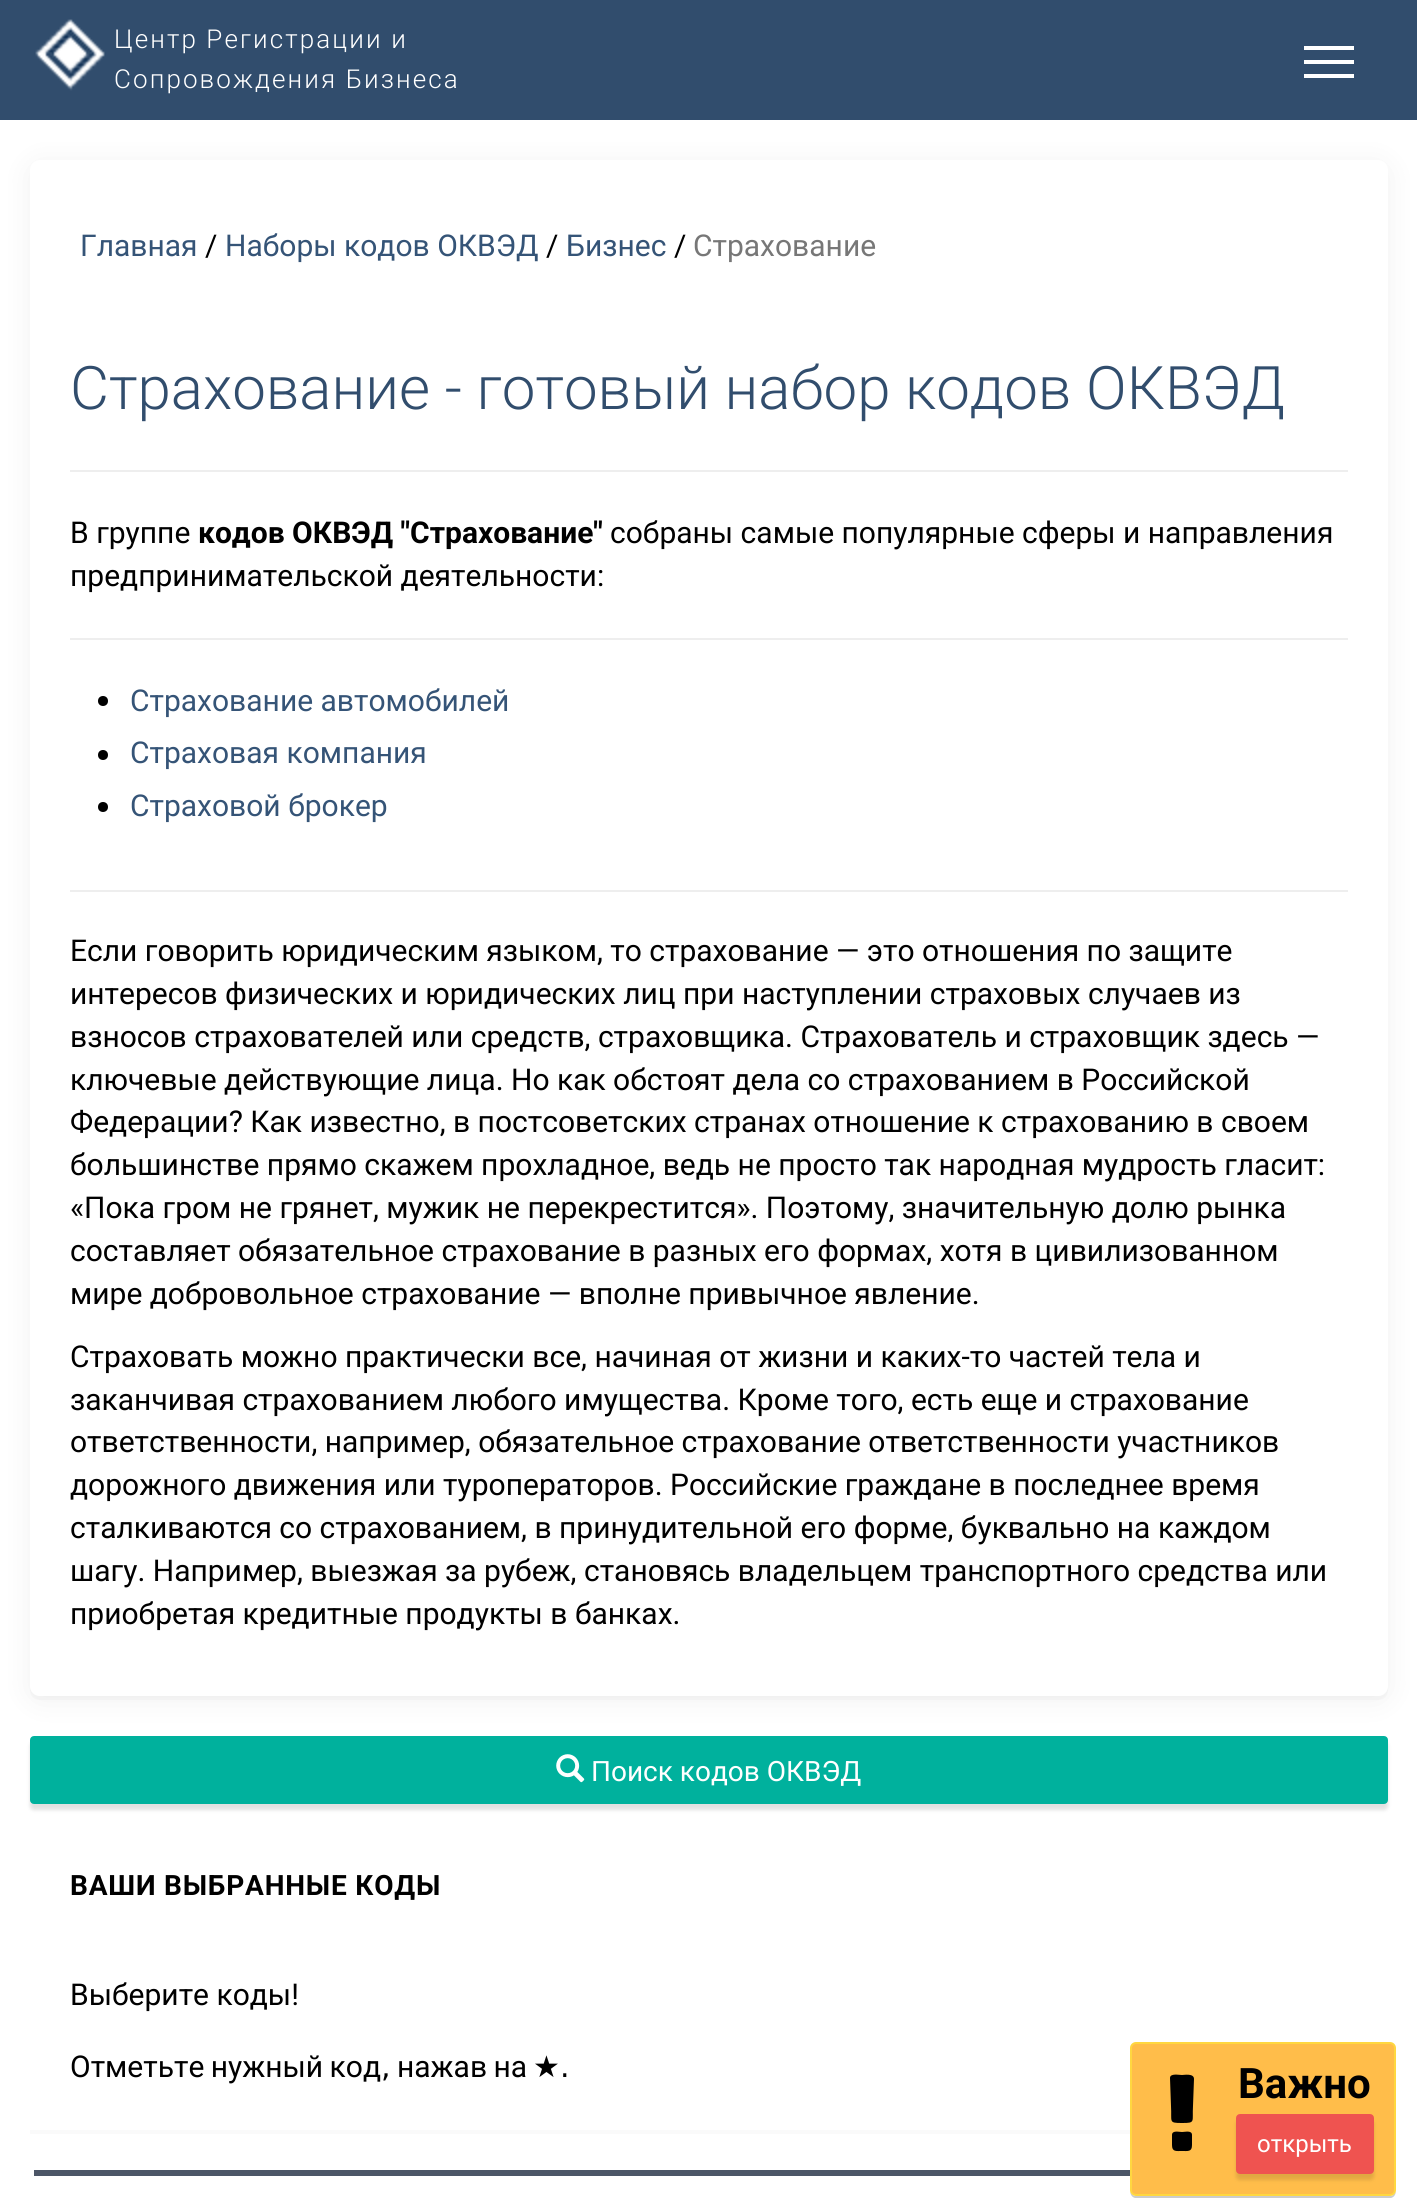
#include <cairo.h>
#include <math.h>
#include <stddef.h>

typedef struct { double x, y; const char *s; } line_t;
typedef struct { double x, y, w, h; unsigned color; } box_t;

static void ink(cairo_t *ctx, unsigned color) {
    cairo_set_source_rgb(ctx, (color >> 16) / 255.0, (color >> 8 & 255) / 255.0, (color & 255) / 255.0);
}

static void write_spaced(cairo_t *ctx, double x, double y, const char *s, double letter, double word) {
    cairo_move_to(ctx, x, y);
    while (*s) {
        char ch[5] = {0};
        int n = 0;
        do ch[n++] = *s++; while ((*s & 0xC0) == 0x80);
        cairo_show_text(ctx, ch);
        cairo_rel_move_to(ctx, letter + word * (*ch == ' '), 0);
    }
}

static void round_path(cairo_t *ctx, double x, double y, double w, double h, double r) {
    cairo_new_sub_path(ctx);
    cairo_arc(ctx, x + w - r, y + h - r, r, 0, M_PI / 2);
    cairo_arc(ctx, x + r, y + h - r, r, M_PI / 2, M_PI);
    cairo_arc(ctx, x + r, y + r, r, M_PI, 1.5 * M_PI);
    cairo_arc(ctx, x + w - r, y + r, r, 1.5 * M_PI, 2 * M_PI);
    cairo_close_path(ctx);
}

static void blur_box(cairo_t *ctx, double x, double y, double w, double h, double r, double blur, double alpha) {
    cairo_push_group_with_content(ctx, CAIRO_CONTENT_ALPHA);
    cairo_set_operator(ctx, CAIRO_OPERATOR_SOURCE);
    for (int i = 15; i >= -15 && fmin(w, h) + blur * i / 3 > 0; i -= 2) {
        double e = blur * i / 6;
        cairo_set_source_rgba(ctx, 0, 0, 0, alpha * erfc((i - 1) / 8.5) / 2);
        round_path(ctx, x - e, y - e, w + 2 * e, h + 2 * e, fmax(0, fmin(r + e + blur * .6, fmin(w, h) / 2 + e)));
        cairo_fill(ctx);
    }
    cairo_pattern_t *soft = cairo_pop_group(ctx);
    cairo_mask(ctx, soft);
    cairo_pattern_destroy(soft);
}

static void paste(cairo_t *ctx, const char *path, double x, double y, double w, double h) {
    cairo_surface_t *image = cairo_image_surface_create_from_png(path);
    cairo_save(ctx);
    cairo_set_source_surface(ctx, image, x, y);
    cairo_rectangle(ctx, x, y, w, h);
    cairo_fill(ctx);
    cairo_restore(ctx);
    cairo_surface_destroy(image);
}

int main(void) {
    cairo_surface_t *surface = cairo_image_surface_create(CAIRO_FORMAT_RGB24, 1417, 2211);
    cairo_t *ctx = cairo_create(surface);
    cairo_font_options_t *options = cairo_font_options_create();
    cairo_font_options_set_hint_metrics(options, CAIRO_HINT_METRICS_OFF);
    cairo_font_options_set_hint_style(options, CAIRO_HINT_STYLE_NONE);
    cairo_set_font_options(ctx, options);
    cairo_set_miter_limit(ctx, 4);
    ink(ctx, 0xFFFFFF);
    cairo_paint(ctx);
    ink(ctx, 0xFAFAFA);
    cairo_new_path(ctx);
    cairo_move_to(ctx, 30, 1686);
    cairo_line_to(ctx, 30, 1690);
    cairo_curve_to(ctx, 30, 1696, 34, 1700, 40, 1700);
    cairo_line_to(ctx, 1378, 1700);
    cairo_curve_to(ctx, 1384, 1700, 1388, 1696, 1388, 1690);
    cairo_line_to(ctx, 1388, 1686);
    cairo_curve_to(ctx, 1388, 1692, 1384, 1696, 1378, 1696);
    cairo_line_to(ctx, 40, 1696);
    cairo_curve_to(ctx, 34, 1696, 30, 1692, 30, 1686);
    cairo_close_path(ctx);
    cairo_fill(ctx);
    ink(ctx, 0x000000);
    blur_box(ctx, 30, 164, 1358, 1536, 10, 15, 0.06);
    ink(ctx, 0x314D6D);
    cairo_rectangle(ctx, 0, 0, 1417, 120);
    cairo_fill(ctx);
    paste(ctx, "media/1.png", 35, 19, 70, 72);
    cairo_select_font_face(ctx, "Roboto Light", CAIRO_FONT_SLANT_NORMAL, CAIRO_FONT_WEIGHT_NORMAL);
    cairo_set_font_size(ctx, 26);
    ink(ctx, 0xFFFFFF);
    write_spaced(ctx, 114, 48, "Центр Регистрации и", 2.1, 0);
    write_spaced(ctx, 114, 88, "Сопровождения Бизнеса", 2.1, 0);
    {
        static const box_t items[] = {
            {1304, 46, 50, 4, 0xFFFFFF},
            {1304, 60, 50, 4, 0xFFFFFF},
            {1304, 74, 50, 4, 0xFFFFFF},
        };
        for (size_t i = 0; i < sizeof items / sizeof *items; i++) {
            ink(ctx, items[i].color);
            cairo_rectangle(ctx, items[i].x, items[i].y, items[i].w, items[i].h);
            cairo_fill(ctx);
        }
    }
    round_path(ctx, 30, 160, 1358, 1536, 10);
    cairo_fill(ctx);
    cairo_select_font_face(ctx, "Roboto", CAIRO_FONT_SLANT_NORMAL, CAIRO_FONT_WEIGHT_NORMAL);
    cairo_set_font_size(ctx, 30);
    ink(ctx, 0x355477);
    cairo_move_to(ctx, 80, 256);
    cairo_show_text(ctx, "Главная");
    ink(ctx, 0x000000);
    cairo_move_to(ctx, 205, 256);
    cairo_show_text(ctx, "/");
    ink(ctx, 0x355477);
    cairo_move_to(ctx, 225, 256);
    cairo_show_text(ctx, "Наборы кодов ОКВЭД");
    ink(ctx, 0x000000);
    cairo_move_to(ctx, 546, 256);
    cairo_show_text(ctx, "/");
    ink(ctx, 0x355477);
    cairo_move_to(ctx, 566, 256);
    cairo_show_text(ctx, "Бизнес");
    ink(ctx, 0x000000);
    cairo_move_to(ctx, 674, 256);
    cairo_show_text(ctx, "/");
    ink(ctx, 0x777777);
    cairo_move_to(ctx, 693, 256);
    cairo_show_text(ctx, "Страхование");
    cairo_select_font_face(ctx, "Roboto Light", CAIRO_FONT_SLANT_NORMAL, CAIRO_FONT_WEIGHT_NORMAL);
    cairo_set_font_size(ctx, 60);
    ink(ctx, 0x314D6D);
    cairo_move_to(ctx, 70, 409);
    cairo_show_text(ctx, "Страхование - готовый набор кодов ОКВЭД");
    ink(ctx, 0xEEEEEE);
    cairo_rectangle(ctx, 70, 470, 1278, 2);
    cairo_fill(ctx);
    cairo_select_font_face(ctx, "Roboto", CAIRO_FONT_SLANT_NORMAL, CAIRO_FONT_WEIGHT_NORMAL);
    cairo_set_font_size(ctx, 30);
    ink(ctx, 0x000000);
    cairo_move_to(ctx, 70, 543);
    cairo_show_text(ctx, "В группе");
    cairo_select_font_face(ctx, "Roboto", CAIRO_FONT_SLANT_NORMAL, CAIRO_FONT_WEIGHT_BOLD);
    cairo_move_to(ctx, 198, 543);
    cairo_show_text(ctx, "кодов ОКВЭД \"Страхование\"");
    cairo_select_font_face(ctx, "Roboto", CAIRO_FONT_SLANT_NORMAL, CAIRO_FONT_WEIGHT_NORMAL);
    cairo_move_to(ctx, 610, 543);
    cairo_show_text(ctx, "собраны самые популярные сферы и направления");
    cairo_move_to(ctx, 70, 586);
    cairo_show_text(ctx, "предпринимательской деятельности:");
    ink(ctx, 0xEEEEEE);
    cairo_rectangle(ctx, 70, 638, 1278, 2);
    cairo_fill(ctx);
    ink(ctx, 0x000000);
    cairo_arc(ctx, 103, 701, 5, 0, 2 * M_PI);
    cairo_fill(ctx);
    ink(ctx, 0x355477);
    cairo_move_to(ctx, 130, 711);
    cairo_show_text(ctx, "Страхование автомобилей");
    ink(ctx, 0x000000);
    cairo_new_path(ctx);
    cairo_arc(ctx, 103, 755, 5, 0, 2 * M_PI);
    cairo_fill(ctx);
    ink(ctx, 0x355477);
    cairo_move_to(ctx, 130, 763);
    cairo_show_text(ctx, "Страховая компания");
    ink(ctx, 0x000000);
    cairo_new_path(ctx);
    cairo_arc(ctx, 103, 807, 5, 0, 2 * M_PI);
    cairo_fill(ctx);
    ink(ctx, 0x355477);
    cairo_move_to(ctx, 130, 816);
    cairo_show_text(ctx, "Страховой брокер");
    ink(ctx, 0xEEEEEE);
    cairo_rectangle(ctx, 70, 890, 1278, 2);
    cairo_fill(ctx);
    ink(ctx, 0x000000);
    {
        static const line_t items[] = {
            {70, 961, "Если говорить юридическим языком, то страхование — это отношения по защите"},
            {70, 1004, "интересов физических и юридических лиц при наступлении страховых случаев из"},
            {70, 1047, "взносов страхователей или средств, страховщика. Страхователь и страховщик здесь —"},
            {70, 1090, "ключевые действующие лица. Но как обстоят дела со страхованием в Российской"},
            {70, 1132, "Федерации? Как известно, в постсоветских странах отношение к страхованию в своем"},
            {70, 1175, "большинстве прямо скажем прохладное, ведь не просто так народная мудрость гласит:"},
            {70, 1218, "«Пока гром не грянет, мужик не перекрестится». Поэтому, значительную долю рынка"},
            {70, 1261, "составляет обязательное страхование в разных его формах, хотя в цивилизованном"},
            {70, 1304, "мире добровольное страхование — вполне привычное явление."},
            {70, 1367, "Страховать можно практически все, начиная от жизни и каких-то частей тела и"},
            {70, 1410, "заканчивая страхованием любого имущества. Кроме того, есть еще и страхование"},
            {70, 1452, "ответственности, например, обязательное страхование ответственности участников"},
            {70, 1495, "дорожного движения или туроператоров. Российские граждане в последнее время"},
            {70, 1538, "сталкиваются со страхованием, в принудительной его форме, буквально на каждом"},
            {70, 1581, "шагу. Например, выезжая за рубеж, становясь владельцем транспортного средства или"},
            {70, 1624, "приобретая кредитные продукты в банках."},
        };
        for (size_t i = 0; i < sizeof items / sizeof *items; i++) {
            cairo_move_to(ctx, items[i].x, items[i].y);
            cairo_show_text(ctx, items[i].s);
        }
    }
    ink(ctx, 0x000000);
    blur_box(ctx, 30, 1742, 1358, 68, 4, 2, 0.12);
    ink(ctx, 0x00B19D);
    round_path(ctx, 31, 1737, 1356, 66, 3);
    cairo_fill_preserve(ctx);
    cairo_stroke(ctx);
    paste(ctx, "media/2.png", 556, 1754, 29, 29);
    cairo_set_font_size(ctx, 28);
    ink(ctx, 0xFFFFFF);
    cairo_move_to(ctx, 591, 1781);
    cairo_show_text(ctx, "Поиск кодов ОКВЭД");
    ink(ctx, 0xFAFAFA);
    cairo_rectangle(ctx, 30, 2130, 1100, 4);
    cairo_fill(ctx);
    cairo_select_font_face(ctx, "Roboto", CAIRO_FONT_SLANT_NORMAL, CAIRO_FONT_WEIGHT_BOLD);
    ink(ctx, 0x000000);
    write_spaced(ctx, 70, 1895, "ВАШИ ВЫБРАННЫЕ КОДЫ", 0.8, 0);
    cairo_select_font_face(ctx, "Roboto", CAIRO_FONT_SLANT_NORMAL, CAIRO_FONT_WEIGHT_NORMAL);
    cairo_set_font_size(ctx, 30);
    cairo_move_to(ctx, 70, 2005);
    cairo_show_text(ctx, "Выберите коды!");
    write_spaced(ctx, 70, 2077, "Отметьте нужный код", 0, -1);
    cairo_select_font_face(ctx, "DejaVu Sans", CAIRO_FONT_SLANT_NORMAL, CAIRO_FONT_WEIGHT_NORMAL);
    cairo_move_to(ctx, 381, 2077);
    cairo_show_text(ctx, ",");
    cairo_select_font_face(ctx, "Roboto", CAIRO_FONT_SLANT_NORMAL, CAIRO_FONT_WEIGHT_NORMAL);
    write_spaced(ctx, 397, 2077, "нажав на", 0, -1);
    cairo_select_font_face(ctx, "DejaVu Sans", CAIRO_FONT_SLANT_NORMAL, CAIRO_FONT_WEIGHT_NORMAL);
    cairo_move_to(ctx, 533, 2077);
    cairo_show_text(ctx, "★.");
    ink(ctx, 0x4C5667);
    cairo_rectangle(ctx, 34, 2170, 1096, 6);
    cairo_fill(ctx);
    cairo_set_source_rgba(ctx, 0, 0, 0, 0.2);
    cairo_new_path(ctx);
    cairo_move_to(ctx, 1130, 2190);
    cairo_curve_to(ctx, 1130, 2193, 1131, 2197, 1135, 2198);
    cairo_line_to(ctx, 1391, 2198);
    cairo_curve_to(ctx, 1395, 2197, 1396, 2193, 1396, 2190);
    cairo_curve_to(ctx, 1396, 2193, 1393, 2196, 1390, 2196);
    cairo_line_to(ctx, 1136, 2196);
    cairo_curve_to(ctx, 1133, 2196, 1130, 2193, 1130, 2190);
    cairo_close_path(ctx);
    cairo_fill(ctx);
    ink(ctx, 0xFFBD4A);
    round_path(ctx, 1131, 2043, 264, 152, 5);
    cairo_fill_preserve(ctx);
    ink(ctx, 0xFFD740);
    cairo_stroke(ctx);
    ink(ctx, 0x000000);
    cairo_new_path(ctx);
    cairo_move_to(ctx, 1192, 2135);
    cairo_line_to(ctx, 1192, 2145);
    cairo_curve_to(ctx, 1192, 2152, 1188, 2151, 1182, 2151);
    cairo_curve_to(ctx, 1176, 2151, 1172, 2152, 1172, 2145);
    cairo_line_to(ctx, 1172, 2135);
    cairo_curve_to(ctx, 1172, 2130, 1179, 2132, 1182, 2132);
    cairo_curve_to(ctx, 1185, 2132, 1192, 2130, 1192, 2135);
    cairo_close_path(ctx);
    cairo_move_to(ctx, 1194, 2079);
    cairo_line_to(ctx, 1193, 2106);
    cairo_curve_to(ctx, 1192, 2122, 1196, 2123, 1182, 2123);
    cairo_curve_to(ctx, 1168, 2123, 1172, 2122, 1171, 2106);
    cairo_line_to(ctx, 1170, 2078);
    cairo_curve_to(ctx, 1170, 2073, 1179, 2075, 1182, 2075);
    cairo_curve_to(ctx, 1184, 2075, 1194, 2073, 1194, 2079);
    cairo_close_path(ctx);
    cairo_fill(ctx);
    cairo_select_font_face(ctx, "Roboto", CAIRO_FONT_SLANT_NORMAL, CAIRO_FONT_WEIGHT_BOLD);
    cairo_set_font_size(ctx, 42);
    cairo_move_to(ctx, 1238, 2098);
    cairo_show_text(ctx, "Важно");
    ink(ctx, 0x000000);
    blur_box(ctx, 1236, 2120, 138, 60, 4, 2, 0.12);
    ink(ctx, 0xEF5350);
    round_path(ctx, 1237, 2115, 136, 58, 3);
    cairo_fill_preserve(ctx);
    cairo_stroke(ctx);
    cairo_select_font_face(ctx, "Roboto", CAIRO_FONT_SLANT_NORMAL, CAIRO_FONT_WEIGHT_NORMAL);
    cairo_set_font_size(ctx, 24);
    ink(ctx, 0xFFFFFF);
    cairo_move_to(ctx, 1257, 2152);
    cairo_show_text(ctx, "открыть");
    cairo_surface_write_to_png(surface, "image.png");
    cairo_font_options_destroy(options);
    cairo_destroy(ctx);
    cairo_surface_destroy(surface);
    return 0;
}
